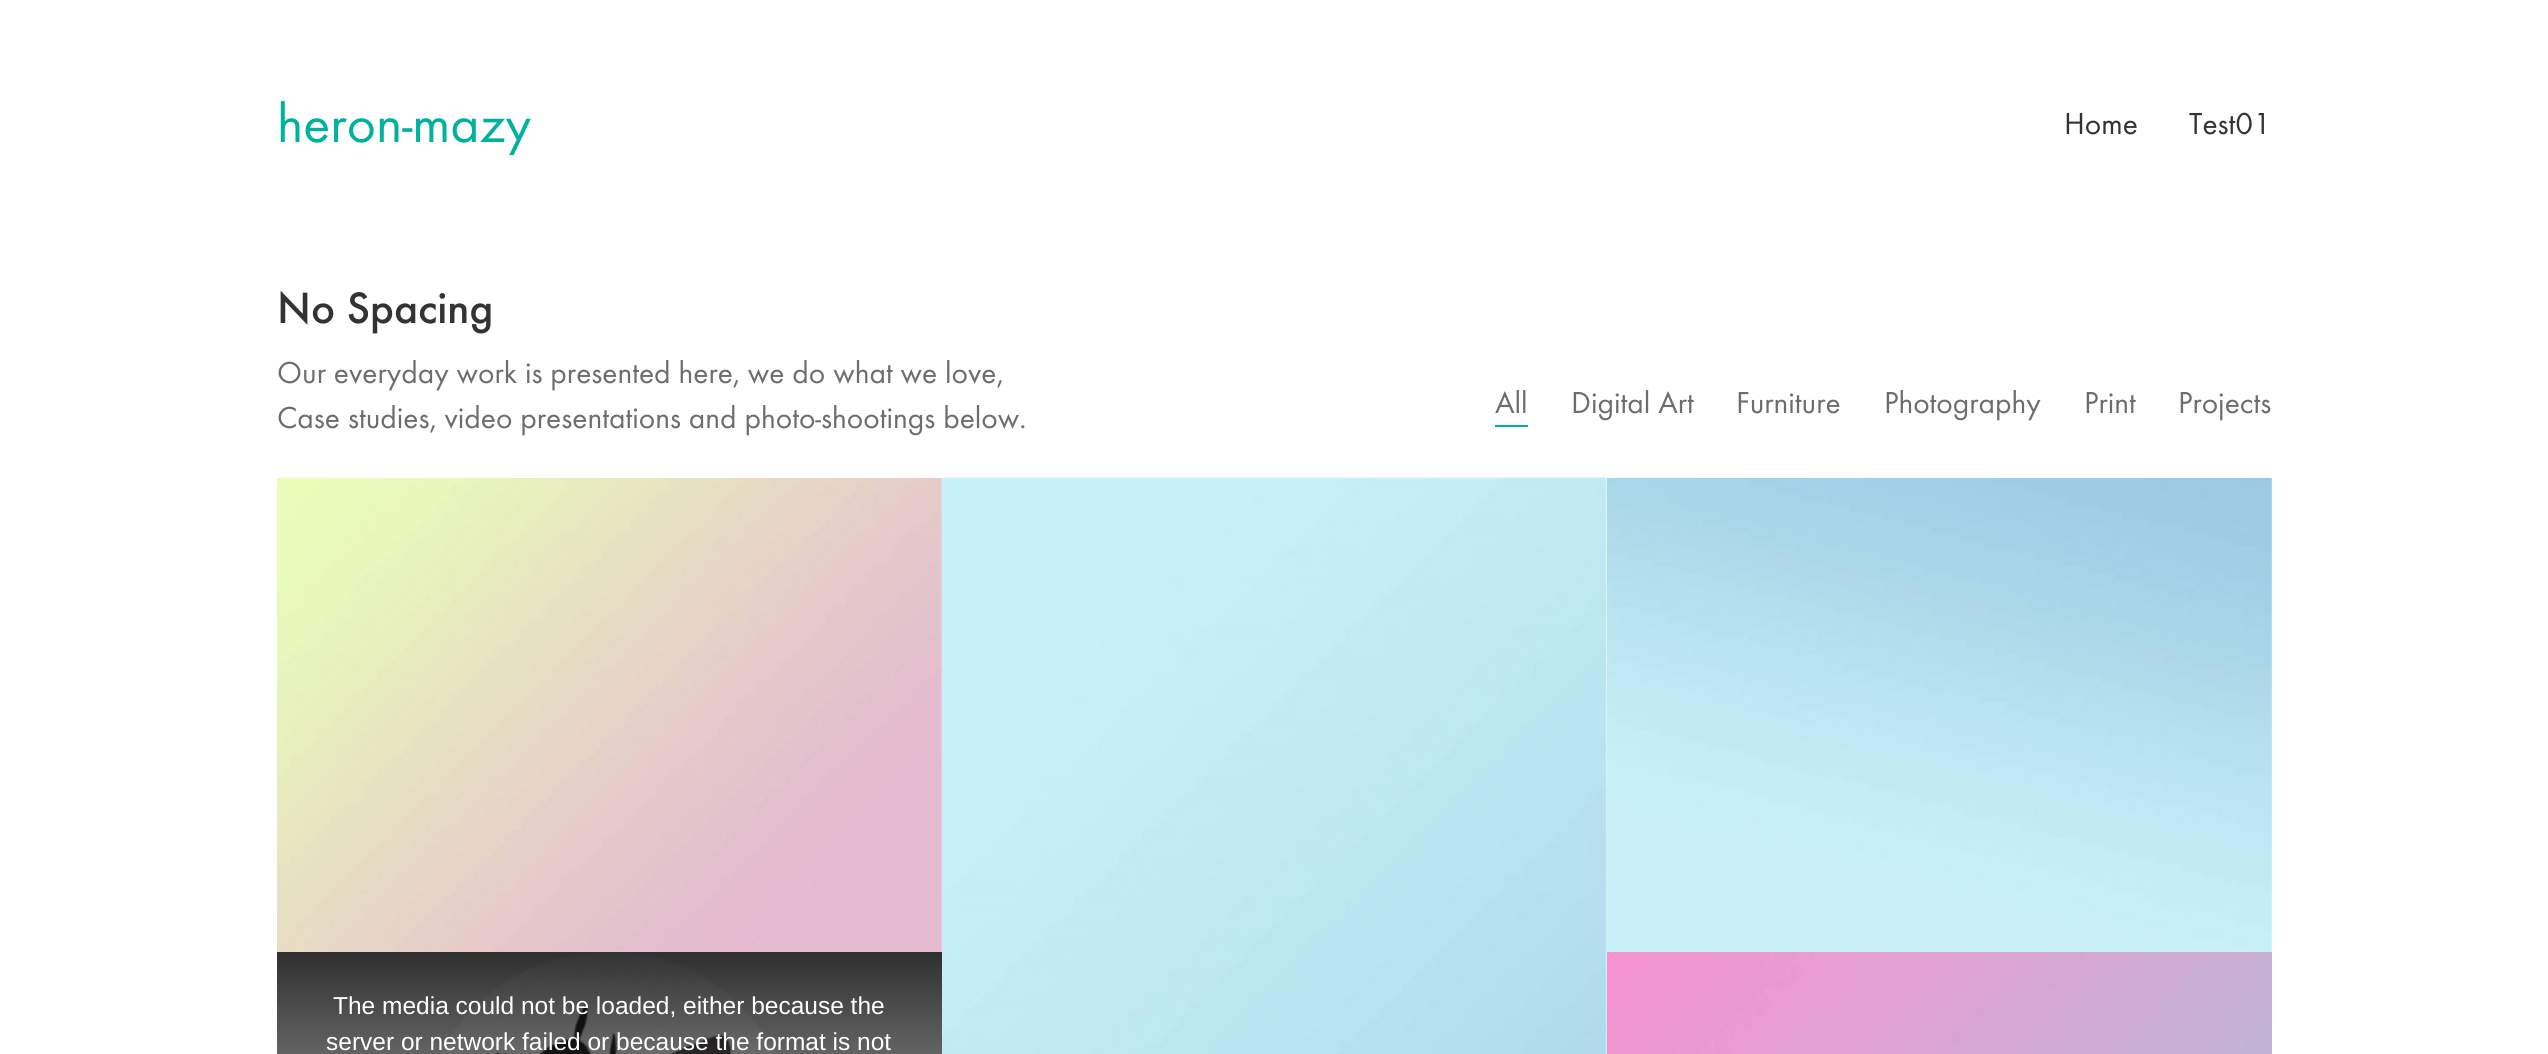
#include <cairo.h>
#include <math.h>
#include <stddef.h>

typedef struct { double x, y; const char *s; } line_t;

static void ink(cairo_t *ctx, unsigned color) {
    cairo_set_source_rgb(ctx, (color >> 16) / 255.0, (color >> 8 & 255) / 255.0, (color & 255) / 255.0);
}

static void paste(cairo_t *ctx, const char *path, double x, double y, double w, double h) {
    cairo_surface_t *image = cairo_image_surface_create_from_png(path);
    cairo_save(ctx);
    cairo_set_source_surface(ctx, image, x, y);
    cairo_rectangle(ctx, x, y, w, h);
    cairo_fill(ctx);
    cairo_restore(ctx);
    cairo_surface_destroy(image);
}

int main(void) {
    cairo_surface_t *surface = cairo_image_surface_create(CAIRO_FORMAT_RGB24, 2548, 1054);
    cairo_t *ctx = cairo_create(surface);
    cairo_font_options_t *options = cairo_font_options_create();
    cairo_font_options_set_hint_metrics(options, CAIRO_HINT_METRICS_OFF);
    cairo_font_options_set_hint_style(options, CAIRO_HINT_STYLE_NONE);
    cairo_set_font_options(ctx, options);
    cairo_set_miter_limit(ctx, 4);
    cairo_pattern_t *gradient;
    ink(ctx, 0xFFFFFF);
    cairo_paint(ctx);
    cairo_select_font_face(ctx, "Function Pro", CAIRO_FONT_SLANT_NORMAL, CAIRO_FONT_WEIGHT_NORMAL);
    cairo_set_font_size(ctx, 56);
    ink(ctx, 0x00B19E);
    cairo_move_to(ctx, 277, 142);
    cairo_show_text(ctx, "heron-mazy");
    cairo_set_font_size(ctx, 31.5);
    ink(ctx, 0x333333);
    cairo_move_to(ctx, 2064, 134);
    cairo_show_text(ctx, "Home");
    cairo_move_to(ctx, 2189, 134);
    cairo_show_text(ctx, "Test01");
    cairo_select_font_face(ctx, "Function Pro Medium", CAIRO_FONT_SLANT_NORMAL, CAIRO_FONT_WEIGHT_NORMAL);
    cairo_set_font_size(ctx, 45.5);
    cairo_move_to(ctx, 277, 323);
    cairo_show_text(ctx, "No Spacing");
    cairo_select_font_face(ctx, "Function Pro", CAIRO_FONT_SLANT_NORMAL, CAIRO_FONT_WEIGHT_NORMAL);
    cairo_set_font_size(ctx, 31.5);
    ink(ctx, 0x6D6D6D);
    {
        static const line_t items[] = {
            {277, 383, "Our everyday work is presented here, we do what we love,"},
            {277, 428, "Case studies, video presentations and photo-shootings below."},
            {1495, 413, "All"},
        };
        for (size_t i = 0; i < sizeof items / sizeof *items; i++) {
            cairo_move_to(ctx, items[i].x, items[i].y);
            cairo_show_text(ctx, items[i].s);
        }
    }
    ink(ctx, 0x00B19E);
    cairo_rectangle(ctx, 1495, 425, 33, 2);
    cairo_fill(ctx);
    ink(ctx, 0x6D6D6D);
    {
        static const line_t items[] = {
            {1571, 413, "Digital Art"},
            {1736, 413, "Furniture"},
            {1884, 413, "Photography"},
            {2084, 413, "Print"},
            {2178, 413, "Projects"},
        };
        for (size_t i = 0; i < sizeof items / sizeof *items; i++) {
            cairo_move_to(ctx, items[i].x, items[i].y);
            cairo_show_text(ctx, items[i].s);
        }
    }
    paste(ctx, "media/1.png", 277, 478, 665, 474);
    paste(ctx, "media/2.png", 942, 477, 665, 577);
    paste(ctx, "media/3.png", 1607, 478, 665, 474);
    ink(ctx, 0xEEEEEE);
    cairo_rectangle(ctx, 277, 952, 665, 102);
    cairo_fill(ctx);
    paste(ctx, "media/4.png", 440, 952, 336, 102);
    paste(ctx, "media/5.png", 441, 952, 335, 102);
    gradient = cairo_pattern_create_linear(609, 952, 609, 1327);
    cairo_pattern_add_color_stop_rgba(gradient, 0, 0, 0, 0, 0.8);
    cairo_pattern_add_color_stop_rgba(gradient, 1, 0, 0, 0, 0);
    cairo_set_source(ctx, gradient);
    cairo_pattern_destroy(gradient);
    cairo_rectangle(ctx, 277, 952, 665, 102);
    cairo_fill(ctx);
    cairo_select_font_face(ctx, "Liberation Sans", CAIRO_FONT_SLANT_NORMAL, CAIRO_FONT_WEIGHT_NORMAL);
    cairo_set_font_size(ctx, 24.5);
    ink(ctx, 0xFFFFFF);
    cairo_move_to(ctx, 333, 1014);
    cairo_show_text(ctx, "The media could not be loaded, either because the");
    cairo_move_to(ctx, 326, 1050);
    cairo_show_text(ctx, "server or network failed or because the format is not");
    paste(ctx, "media/6.png", 1607, 952, 665, 102);
    cairo_surface_write_to_png(surface, "image.png");
    cairo_font_options_destroy(options);
    cairo_destroy(ctx);
    cairo_surface_destroy(surface);
    return 0;
}
